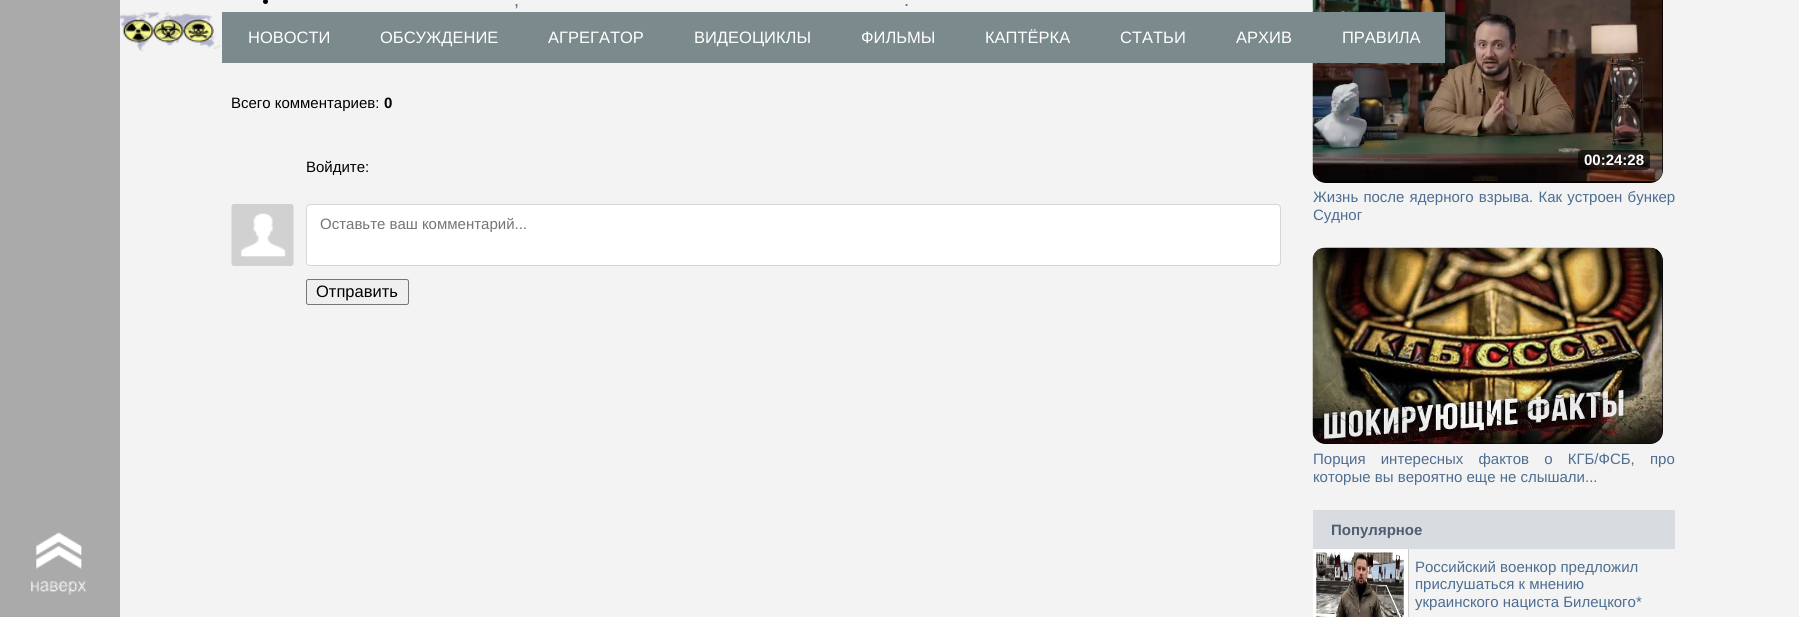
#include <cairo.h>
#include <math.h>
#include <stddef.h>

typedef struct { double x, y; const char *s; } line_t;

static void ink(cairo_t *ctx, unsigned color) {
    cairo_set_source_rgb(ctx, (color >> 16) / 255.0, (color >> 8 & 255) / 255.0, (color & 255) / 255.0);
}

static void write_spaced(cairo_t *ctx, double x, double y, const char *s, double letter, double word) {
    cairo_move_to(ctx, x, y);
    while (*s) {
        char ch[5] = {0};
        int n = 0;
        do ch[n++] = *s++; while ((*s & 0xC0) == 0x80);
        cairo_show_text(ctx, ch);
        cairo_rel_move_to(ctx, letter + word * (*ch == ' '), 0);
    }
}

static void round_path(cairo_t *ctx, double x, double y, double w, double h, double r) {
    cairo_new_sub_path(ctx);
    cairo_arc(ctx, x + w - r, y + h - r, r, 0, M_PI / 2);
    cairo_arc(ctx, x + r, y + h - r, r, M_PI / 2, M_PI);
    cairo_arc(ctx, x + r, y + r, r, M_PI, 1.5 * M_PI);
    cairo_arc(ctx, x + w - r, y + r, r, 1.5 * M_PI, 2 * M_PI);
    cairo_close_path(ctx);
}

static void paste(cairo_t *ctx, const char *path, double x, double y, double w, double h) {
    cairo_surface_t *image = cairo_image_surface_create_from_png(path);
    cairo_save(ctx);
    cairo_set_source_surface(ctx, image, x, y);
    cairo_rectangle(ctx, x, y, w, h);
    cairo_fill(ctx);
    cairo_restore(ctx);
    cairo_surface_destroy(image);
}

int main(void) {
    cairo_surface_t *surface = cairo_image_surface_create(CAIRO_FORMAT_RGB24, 1799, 617);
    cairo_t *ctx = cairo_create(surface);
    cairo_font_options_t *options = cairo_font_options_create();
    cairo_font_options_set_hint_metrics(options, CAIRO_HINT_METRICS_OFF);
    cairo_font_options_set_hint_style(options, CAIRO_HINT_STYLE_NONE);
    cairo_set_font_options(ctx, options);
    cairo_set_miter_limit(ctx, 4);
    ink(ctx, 0xF3F3F3);
    cairo_paint(ctx);
    ink(ctx, 0xAAAAAA);
    cairo_rectangle(ctx, 0, 0, 120, 617);
    cairo_fill(ctx);
    paste(ctx, "media/1.png", 31, 532, 56, 63);
    ink(ctx, 0x000000);
    cairo_arc(ctx, 265.5, 1.5, 2.5, 0, 2 * M_PI);
    cairo_fill(ctx);
    cairo_select_font_face(ctx, "Liberation Sans", CAIRO_FONT_SLANT_NORMAL, CAIRO_FONT_WEIGHT_NORMAL);
    cairo_set_font_size(ctx, 18);
    ink(ctx, 0x4D6D91);
    write_spaced(ctx, 514, 6, ",", 0, 3);
    write_spaced(ctx, 904, 6, ".", 0, 3);
    cairo_set_font_size(ctx, 15);
    ink(ctx, 0x000000);
    cairo_move_to(ctx, 231, 108);
    cairo_show_text(ctx, "Всего комментариев:");
    cairo_select_font_face(ctx, "Liberation Sans", CAIRO_FONT_SLANT_NORMAL, CAIRO_FONT_WEIGHT_BOLD);
    cairo_move_to(ctx, 384, 108);
    cairo_show_text(ctx, "0");
    cairo_select_font_face(ctx, "Liberation Sans", CAIRO_FONT_SLANT_NORMAL, CAIRO_FONT_WEIGHT_NORMAL);
    cairo_move_to(ctx, 306, 172);
    cairo_show_text(ctx, "Войдите:");
    paste(ctx, "media/2.png", 231, 204, 63, 62);
    ink(ctx, 0xFFFFFF);
    round_path(ctx, 306.5, 204.5, 974, 61, 3.5);
    cairo_fill_preserve(ctx);
    ink(ctx, 0xD6D6D6);
    cairo_set_line_width(ctx, 1);
    cairo_stroke(ctx);
    ink(ctx, 0x757575);
    cairo_move_to(ctx, 320, 229);
    cairo_show_text(ctx, "Оставьте ваш комментарий...");
    ink(ctx, 0xEFEFEF);
    round_path(ctx, 306.5, 279.5, 102, 25, 2);
    cairo_fill_preserve(ctx);
    ink(ctx, 0x767676);
    cairo_stroke(ctx);
    cairo_set_font_size(ctx, 16.5);
    ink(ctx, 0x000000);
    cairo_move_to(ctx, 316, 297);
    cairo_show_text(ctx, "Отправить");
    round_path(ctx, 1313, -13, 350, 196, 13);
    cairo_fill(ctx);
    paste(ctx, "media/3.png", 1312, 0, 351, 182);
    cairo_set_source_rgba(ctx, 0, 0, 0, 0.63);
    round_path(ctx, 1578, 150, 72, 20, 4);
    cairo_fill(ctx);
    cairo_select_font_face(ctx, "Liberation Sans", CAIRO_FONT_SLANT_NORMAL, CAIRO_FONT_WEIGHT_BOLD);
    cairo_set_font_size(ctx, 15);
    ink(ctx, 0xFFFFFF);
    cairo_move_to(ctx, 1584, 165);
    cairo_show_text(ctx, "00:24:28");
    cairo_select_font_face(ctx, "Liberation Sans", CAIRO_FONT_SLANT_NORMAL, CAIRO_FONT_WEIGHT_NORMAL);
    ink(ctx, 0x4D6D91);
    write_spaced(ctx, 1313, 202, "Жизнь после ядерного взрыва. Как устроен бункер", 0, 1);
    cairo_move_to(ctx, 1313, 220);
    cairo_show_text(ctx, "Судног");
    ink(ctx, 0x000000);
    round_path(ctx, 1313, 248, 350, 196, 13);
    cairo_fill(ctx);
    paste(ctx, "media/4.png", 1312, 247, 351, 197);
    ink(ctx, 0x4D6D91);
    write_spaced(ctx, 1313, 464, "Порция интересных фактов о КГБ/ФСБ, про", 0, 11);
    cairo_move_to(ctx, 1313, 482);
    cairo_show_text(ctx, "которые вы вероятно еще не слышали...");
    ink(ctx, 0xD8DCE1);
    cairo_rectangle(ctx, 1313, 510, 362, 39);
    cairo_fill(ctx);
    cairo_select_font_face(ctx, "Liberation Sans", CAIRO_FONT_SLANT_NORMAL, CAIRO_FONT_WEIGHT_BOLD);
    ink(ctx, 0x4F5D71);
    cairo_move_to(ctx, 1331, 535);
    cairo_show_text(ctx, "Популярное");
    ink(ctx, 0xFFFFFF);
    cairo_rectangle(ctx, 1313, 549, 95, 68);
    cairo_fill(ctx);
    paste(ctx, "media/5.png", 1316, 552, 88, 65);
    ink(ctx, 0xCCCCCC);
    cairo_rectangle(ctx, 1408, 549, 1, 68);
    cairo_fill(ctx);
    cairo_select_font_face(ctx, "Liberation Sans", CAIRO_FONT_SLANT_NORMAL, CAIRO_FONT_WEIGHT_NORMAL);
    ink(ctx, 0x4D6D91);
    {
        static const line_t items[] = {
            {1415, 572, "Российский военкор предложил"},
            {1415, 589, "прислушаться к мнению"},
            {1415, 607, "украинского нациста Билецкого*"},
        };
        for (size_t i = 0; i < sizeof items / sizeof *items; i++) {
            cairo_move_to(ctx, items[i].x, items[i].y);
            cairo_show_text(ctx, items[i].s);
        }
    }
    paste(ctx, "media/6.png", 116, 12, 104, 40);
    ink(ctx, 0x7B8A8C);
    cairo_rectangle(ctx, 222, 12, 1223, 51);
    cairo_fill(ctx);
    cairo_set_font_size(ctx, 16.5);
    ink(ctx, 0xFFFFFF);
    {
        static const line_t items[] = {
            {248, 43, "НОВОСТИ"},
            {380, 43, "ОБСУЖДЕНИЕ"},
            {548, 43, "АГРЕГАТОР"},
            {694, 43, "ВИДЕОЦИКЛЫ"},
            {861, 43, "ФИЛЬМЫ"},
            {985, 43, "КАПТЁРКА"},
            {1120, 43, "СТАТЬИ"},
            {1236, 43, "АРХИВ"},
            {1342, 43, "ПРАВИЛА"},
        };
        for (size_t i = 0; i < sizeof items / sizeof *items; i++) {
            cairo_move_to(ctx, items[i].x, items[i].y);
            cairo_show_text(ctx, items[i].s);
        }
    }
    cairo_surface_write_to_png(surface, "image.png");
    cairo_font_options_destroy(options);
    cairo_destroy(ctx);
    cairo_surface_destroy(surface);
    return 0;
}
